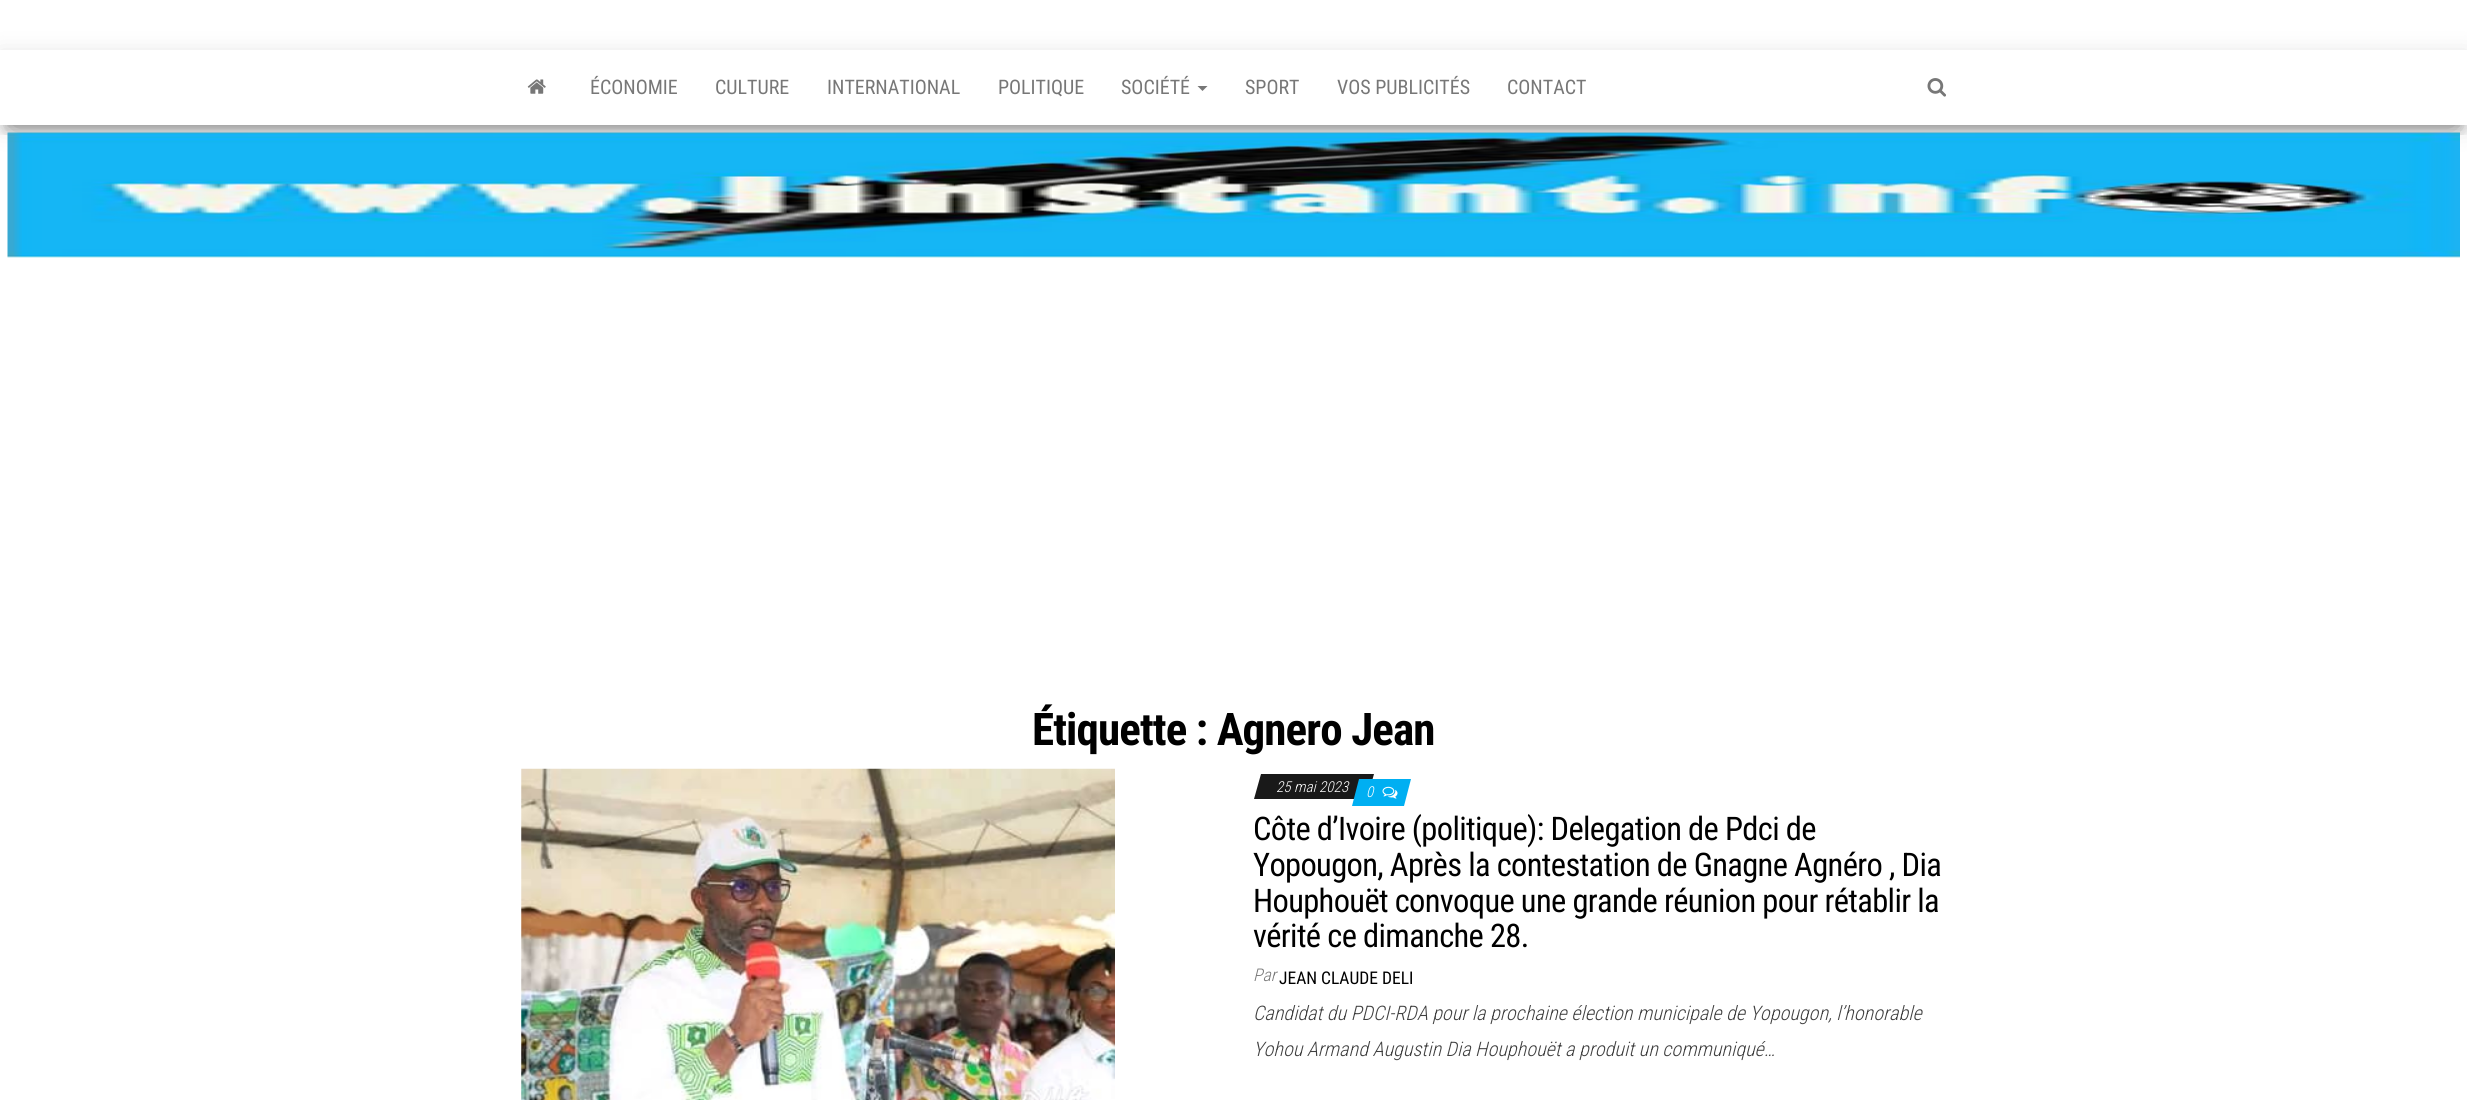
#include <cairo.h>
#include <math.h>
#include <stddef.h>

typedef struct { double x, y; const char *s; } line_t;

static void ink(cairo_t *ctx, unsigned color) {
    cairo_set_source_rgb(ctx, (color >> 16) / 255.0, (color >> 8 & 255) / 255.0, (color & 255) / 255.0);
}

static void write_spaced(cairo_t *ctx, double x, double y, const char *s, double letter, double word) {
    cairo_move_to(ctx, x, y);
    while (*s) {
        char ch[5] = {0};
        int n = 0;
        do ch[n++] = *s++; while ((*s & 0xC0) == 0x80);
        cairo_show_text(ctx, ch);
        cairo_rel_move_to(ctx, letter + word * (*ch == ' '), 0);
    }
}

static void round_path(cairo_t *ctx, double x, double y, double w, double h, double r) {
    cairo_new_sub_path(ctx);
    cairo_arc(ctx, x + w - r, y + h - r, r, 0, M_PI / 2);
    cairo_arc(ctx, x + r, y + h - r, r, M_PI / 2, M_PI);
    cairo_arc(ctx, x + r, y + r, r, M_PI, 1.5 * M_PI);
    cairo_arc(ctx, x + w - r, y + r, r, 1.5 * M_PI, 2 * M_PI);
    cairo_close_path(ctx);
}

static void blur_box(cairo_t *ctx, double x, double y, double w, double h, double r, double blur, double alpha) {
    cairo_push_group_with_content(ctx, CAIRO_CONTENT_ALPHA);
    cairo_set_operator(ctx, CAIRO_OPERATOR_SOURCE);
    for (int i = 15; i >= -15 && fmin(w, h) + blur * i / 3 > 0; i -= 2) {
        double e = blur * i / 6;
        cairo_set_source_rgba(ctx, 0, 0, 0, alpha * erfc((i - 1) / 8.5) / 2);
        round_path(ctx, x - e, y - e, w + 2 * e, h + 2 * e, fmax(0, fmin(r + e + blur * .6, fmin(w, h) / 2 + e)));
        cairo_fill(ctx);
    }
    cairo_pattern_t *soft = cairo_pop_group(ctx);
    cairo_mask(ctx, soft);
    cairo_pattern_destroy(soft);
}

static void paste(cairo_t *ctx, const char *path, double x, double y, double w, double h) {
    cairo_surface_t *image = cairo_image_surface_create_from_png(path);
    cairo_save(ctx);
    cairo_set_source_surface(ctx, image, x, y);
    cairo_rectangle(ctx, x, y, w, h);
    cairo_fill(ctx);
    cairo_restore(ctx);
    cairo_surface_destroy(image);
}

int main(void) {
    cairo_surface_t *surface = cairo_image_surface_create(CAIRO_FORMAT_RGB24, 2467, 1100);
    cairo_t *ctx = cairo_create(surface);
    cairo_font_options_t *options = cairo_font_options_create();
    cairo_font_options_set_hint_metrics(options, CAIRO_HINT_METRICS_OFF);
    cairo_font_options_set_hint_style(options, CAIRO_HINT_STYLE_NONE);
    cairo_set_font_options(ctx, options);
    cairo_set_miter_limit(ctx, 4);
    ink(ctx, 0xFFFFFF);
    cairo_paint(ctx);
    cairo_save(ctx);
    cairo_rectangle(ctx, 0, 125, 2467, 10);
    cairo_clip(ctx);
    ink(ctx, 0x000000);
    blur_box(ctx, 6, 66, 2455, 63, 0, 6, 0.2);
    cairo_restore(ctx);
    cairo_save(ctx);
    cairo_set_fill_rule(ctx, CAIRO_FILL_RULE_EVEN_ODD);
    cairo_new_path(ctx);
    cairo_move_to(ctx, 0, 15);
    cairo_line_to(ctx, 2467, 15);
    cairo_line_to(ctx, 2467, 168);
    cairo_line_to(ctx, 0, 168);
    cairo_close_path(ctx);
    cairo_move_to(ctx, 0, 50);
    cairo_line_to(ctx, 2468, 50);
    cairo_line_to(ctx, 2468, 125);
    cairo_line_to(ctx, 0, 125);
    cairo_close_path(ctx);
    cairo_clip(ctx);
    ink(ctx, 0x000000);
    blur_box(ctx, 0, 54, 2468, 75, 0, 12.5, 0.12);
    cairo_restore(ctx);
    cairo_save(ctx);
    cairo_rectangle(ctx, 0, 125, 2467, 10);
    cairo_clip(ctx);
    ink(ctx, 0x000000);
    blur_box(ctx, 15, 78, 2438, 45, 0, 12.5, 0.42);
    cairo_restore(ctx);
    paste(ctx, "media/1.png", 527, 79, 19, 15);
    cairo_select_font_face(ctx, "Roboto Condensed", CAIRO_FONT_SLANT_NORMAL, CAIRO_FONT_WEIGHT_NORMAL);
    cairo_set_font_size(ctx, 20);
    ink(ctx, 0x777777);
    {
        static const line_t items[] = {
            {590, 94, "ÉCONOMIE"},
            {715, 94, "CULTURE"},
            {827, 94, "INTERNATIONAL"},
            {998, 94, "POLITIQUE"},
            {1121, 94, "SOCIÉTÉ"},
        };
        for (size_t i = 0; i < sizeof items / sizeof *items; i++) {
            cairo_move_to(ctx, items[i].x, items[i].y);
            cairo_show_text(ctx, items[i].s);
        }
    }
    cairo_new_path(ctx);
    cairo_move_to(ctx, 1197.5, 86);
    cairo_line_to(ctx, 1207.5, 86);
    cairo_line_to(ctx, 1202.5, 91);
    cairo_close_path(ctx);
    cairo_fill(ctx);
    {
        static const line_t items[] = {
            {1245, 94, "SPORT"},
            {1337, 94, "VOS PUBLICITÉS"},
            {1507, 94, "CONTACT"},
        };
        for (size_t i = 0; i < sizeof items / sizeof *items; i++) {
            cairo_move_to(ctx, items[i].x, items[i].y);
            cairo_show_text(ctx, items[i].s);
        }
    }
    paste(ctx, "media/2.png", 1927, 78, 19, 19);
    paste(ctx, "media/3.png", 7, 132, 2453, 126);
    cairo_select_font_face(ctx, "Roboto Condensed", CAIRO_FONT_SLANT_NORMAL, CAIRO_FONT_WEIGHT_BOLD);
    cairo_set_font_size(ctx, 45);
    ink(ctx, 0x000000);
    write_spaced(ctx, 1032, 745, "Étiquette : Agnero Jean", -0.9, 0);
    paste(ctx, "media/4.png", 521, 768, 594, 332);
    ink(ctx, 0x191919);
    cairo_new_path(ctx);
    cairo_move_to(ctx, 1261, 774);
    cairo_line_to(ctx, 1374, 774);
    cairo_line_to(ctx, 1367, 799);
    cairo_line_to(ctx, 1254, 799);
    cairo_close_path(ctx);
    cairo_fill(ctx);
    cairo_select_font_face(ctx, "Roboto Condensed Light", CAIRO_FONT_SLANT_ITALIC, CAIRO_FONT_WEIGHT_NORMAL);
    cairo_set_font_size(ctx, 15);
    ink(ctx, 0xFFFFFF);
    cairo_move_to(ctx, 1276, 792);
    cairo_show_text(ctx, "25 mai 2023");
    ink(ctx, 0x00AFF2);
    cairo_new_path(ctx);
    cairo_move_to(ctx, 1359, 779);
    cairo_line_to(ctx, 1411, 779);
    cairo_line_to(ctx, 1404, 806);
    cairo_line_to(ctx, 1352, 806);
    cairo_close_path(ctx);
    cairo_fill(ctx);
    ink(ctx, 0xFFFFFF);
    cairo_move_to(ctx, 1366, 797);
    cairo_show_text(ctx, "0");
    paste(ctx, "media/5.png", 1382, 786, 16, 13);
    cairo_select_font_face(ctx, "Roboto Condensed", CAIRO_FONT_SLANT_NORMAL, CAIRO_FONT_WEIGHT_NORMAL);
    cairo_set_font_size(ctx, 32.5);
    ink(ctx, 0x000000);
    {
        static const line_t items[] = {
            {1253, 840, "Côte d’Ivoire (politique): Delegation de Pdci de"},
            {1253, 876, "Yopougon, Après la contestation de Gnagne Agnéro , Dia"},
            {1253, 912, "Houphouët convoque une grande réunion pour rétablir la"},
            {1253, 947, "vérité ce dimanche 28."},
        };
        for (size_t i = 0; i < sizeof items / sizeof *items; i++) {
            write_spaced(ctx, items[i].x, items[i].y, items[i].s, -0.65, 0);
        }
    }
    cairo_select_font_face(ctx, "Roboto Condensed Light", CAIRO_FONT_SLANT_ITALIC, CAIRO_FONT_WEIGHT_NORMAL);
    cairo_set_font_size(ctx, 17.5);
    ink(ctx, 0x777777);
    cairo_move_to(ctx, 1253, 981);
    cairo_show_text(ctx, "Par");
    cairo_select_font_face(ctx, "Roboto Condensed", CAIRO_FONT_SLANT_NORMAL, CAIRO_FONT_WEIGHT_NORMAL);
    ink(ctx, 0x000000);
    cairo_move_to(ctx, 1279, 984);
    cairo_show_text(ctx, "JEAN CLAUDE DELI");
    cairo_select_font_face(ctx, "Roboto Condensed Light", CAIRO_FONT_SLANT_ITALIC, CAIRO_FONT_WEIGHT_NORMAL);
    cairo_set_font_size(ctx, 20);
    ink(ctx, 0x404040);
    cairo_move_to(ctx, 1253, 1020);
    cairo_show_text(ctx, "Candidat du PDCI-RDA pour la prochaine élection municipale de Yopougon, l’honorable");
    cairo_move_to(ctx, 1253, 1056);
    cairo_show_text(ctx, "Yohou Armand Augustin Dia Houphouët a produit un communiqué…");
    cairo_surface_write_to_png(surface, "image.png");
    cairo_font_options_destroy(options);
    cairo_destroy(ctx);
    cairo_surface_destroy(surface);
    return 0;
}
